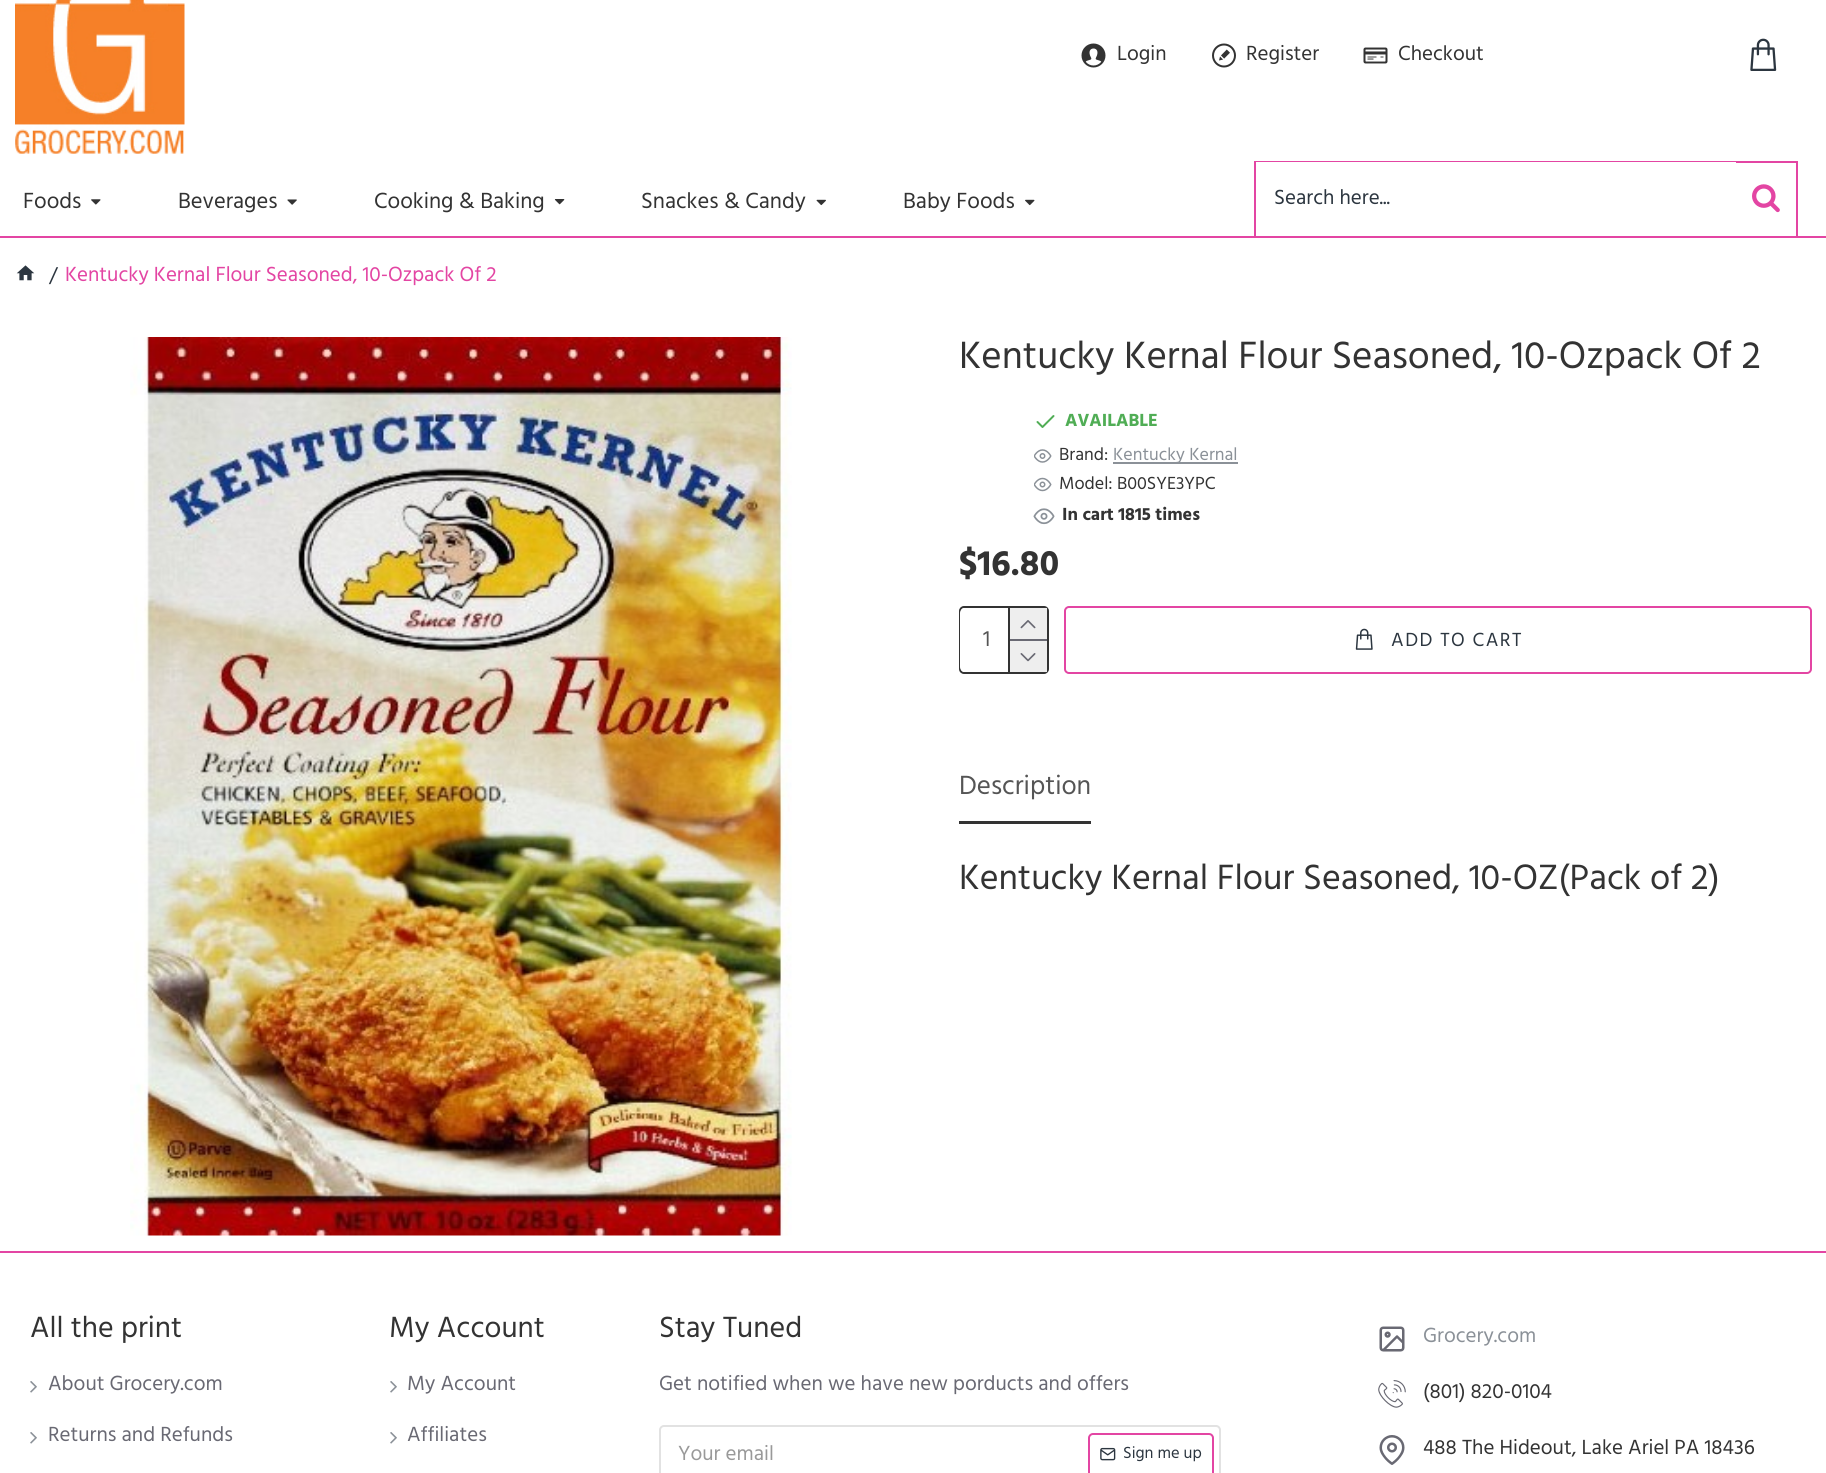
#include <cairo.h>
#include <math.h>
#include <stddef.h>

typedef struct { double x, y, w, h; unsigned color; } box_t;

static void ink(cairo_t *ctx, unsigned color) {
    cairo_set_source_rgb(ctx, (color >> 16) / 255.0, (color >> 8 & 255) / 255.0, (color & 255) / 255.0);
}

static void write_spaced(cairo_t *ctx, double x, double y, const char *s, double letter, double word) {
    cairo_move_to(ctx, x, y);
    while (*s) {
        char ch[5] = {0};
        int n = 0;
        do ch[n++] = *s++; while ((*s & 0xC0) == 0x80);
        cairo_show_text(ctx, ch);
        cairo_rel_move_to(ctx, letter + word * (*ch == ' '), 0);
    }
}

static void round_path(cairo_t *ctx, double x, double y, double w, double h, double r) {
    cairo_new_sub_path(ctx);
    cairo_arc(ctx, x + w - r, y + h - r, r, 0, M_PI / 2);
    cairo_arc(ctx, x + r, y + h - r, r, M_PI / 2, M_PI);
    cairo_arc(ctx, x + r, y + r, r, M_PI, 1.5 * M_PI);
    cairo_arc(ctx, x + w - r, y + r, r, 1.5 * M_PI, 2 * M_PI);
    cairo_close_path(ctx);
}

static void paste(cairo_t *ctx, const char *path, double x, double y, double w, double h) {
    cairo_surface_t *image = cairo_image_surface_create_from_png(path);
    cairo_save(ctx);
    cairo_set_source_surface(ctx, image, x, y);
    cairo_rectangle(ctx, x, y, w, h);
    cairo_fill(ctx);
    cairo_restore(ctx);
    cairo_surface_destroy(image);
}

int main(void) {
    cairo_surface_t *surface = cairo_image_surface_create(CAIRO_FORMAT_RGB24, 1826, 1473);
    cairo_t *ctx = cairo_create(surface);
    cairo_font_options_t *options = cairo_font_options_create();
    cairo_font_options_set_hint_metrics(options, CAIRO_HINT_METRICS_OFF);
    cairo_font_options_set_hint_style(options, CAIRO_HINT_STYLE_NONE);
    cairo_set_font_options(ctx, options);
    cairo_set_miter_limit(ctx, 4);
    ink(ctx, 0xFFFFFF);
    cairo_paint(ctx);
    ink(ctx, 0xE345A3);
    cairo_rectangle(ctx, 0, 236, 1826, 2);
    cairo_fill(ctx);
    paste(ctx, "media/1.png", 15, 0, 170, 154);
    paste(ctx, "media/2.png", 1081, 43, 25, 25);
    cairo_select_font_face(ctx, "Hind", CAIRO_FONT_SLANT_NORMAL, CAIRO_FONT_WEIGHT_NORMAL);
    cairo_set_font_size(ctx, 21);
    ink(ctx, 0x333333);
    cairo_move_to(ctx, 1117, 60);
    cairo_show_text(ctx, "Login");
    paste(ctx, "media/3.png", 1212, 43, 24, 25);
    cairo_move_to(ctx, 1246, 60);
    cairo_show_text(ctx, "Register");
    paste(ctx, "media/4.png", 1363, 47, 25, 17);
    cairo_move_to(ctx, 1398, 60);
    cairo_show_text(ctx, "Checkout");
    paste(ctx, "media/5.png", 1750, 38, 27, 33);
    cairo_set_font_size(ctx, 22.5);
    cairo_move_to(ctx, 23, 208);
    cairo_show_text(ctx, "Foods");
    paste(ctx, "media/6.png", 91, 199, 10, 6);
    cairo_move_to(ctx, 178, 208);
    cairo_show_text(ctx, "Beverages");
    paste(ctx, "media/7.png", 287, 199, 10, 6);
    cairo_move_to(ctx, 374, 208);
    cairo_show_text(ctx, "Cooking & Baking");
    paste(ctx, "media/8.png", 554, 199, 11, 6);
    cairo_move_to(ctx, 641, 208);
    cairo_show_text(ctx, "Snackes & Candy");
    paste(ctx, "media/9.png", 816, 199, 10, 7);
    cairo_move_to(ctx, 903, 208);
    cairo_show_text(ctx, "Baby Foods");
    paste(ctx, "media/10.png", 1025, 199, 10, 7);
    {
        static const box_t items[] = {
            {1254, 161, 543, 2, 0xE345A3},
            {1796, 161, 2, 75, 0xE345A3},
            {1254, 161, 2, 75, 0xE345A3},
            {1256, 162, 480, 1, 0xFFFFFF},
        };
        for (size_t i = 0; i < sizeof items / sizeof *items; i++) {
            ink(ctx, items[i].color);
            cairo_rectangle(ctx, items[i].x, items[i].y, items[i].w, items[i].h);
            cairo_fill(ctx);
        }
    }
    cairo_set_font_size(ctx, 21);
    ink(ctx, 0x2C3640);
    cairo_move_to(ctx, 1274, 204);
    cairo_show_text(ctx, "Search here...");
    paste(ctx, "media/11.png", 1752, 184, 28, 29);
    paste(ctx, "media/12.png", 16, 265, 19, 16);
    cairo_move_to(ctx, 49, 282);
    cairo_show_text(ctx, "/");
    ink(ctx, 0xE345A3);
    cairo_move_to(ctx, 65, 281);
    cairo_show_text(ctx, "Kentucky Kernal Flour Seasoned, 10-Ozpack Of 2");
    paste(ctx, "media/13.png", 130, 337, 662, 899);
    cairo_set_font_size(ctx, 39);
    ink(ctx, 0x333333);
    cairo_move_to(ctx, 959, 368);
    cairo_show_text(ctx, "Kentucky Kernal Flour Seasoned, 10-Ozpack Of 2");
    paste(ctx, "media/14.png", 1036, 415, 19, 13);
    cairo_select_font_face(ctx, "Hind", CAIRO_FONT_SLANT_NORMAL, CAIRO_FONT_WEIGHT_BOLD);
    cairo_set_font_size(ctx, 18);
    ink(ctx, 0x50AD55);
    cairo_move_to(ctx, 1065, 426);
    cairo_show_text(ctx, "AVAILABLE");
    paste(ctx, "media/15.png", 1034, 449, 18, 14);
    cairo_select_font_face(ctx, "Hind", CAIRO_FONT_SLANT_NORMAL, CAIRO_FONT_WEIGHT_NORMAL);
    ink(ctx, 0x333333);
    cairo_move_to(ctx, 1059, 460);
    cairo_show_text(ctx, "Brand:");
    ink(ctx, 0x8B9198);
    cairo_rectangle(ctx, 1113, 462, 125, 2);
    cairo_fill(ctx);
    cairo_move_to(ctx, 1113, 460);
    cairo_show_text(ctx, "Kentucky Kernal");
    paste(ctx, "media/16.png", 1034, 477, 18, 15);
    ink(ctx, 0x333333);
    cairo_move_to(ctx, 1059, 489);
    cairo_show_text(ctx, "Model: B00SYE3YPC");
    paste(ctx, "media/17.png", 1033, 508, 22, 17);
    cairo_select_font_face(ctx, "Hind", CAIRO_FONT_SLANT_NORMAL, CAIRO_FONT_WEIGHT_BOLD);
    cairo_move_to(ctx, 1062, 520);
    cairo_show_text(ctx, "In cart 1815 times");
    cairo_set_font_size(ctx, 36);
    cairo_move_to(ctx, 959, 575);
    cairo_show_text(ctx, "$16.80");
    round_path(ctx, 960, 607, 88, 66, 4);
    cairo_stroke(ctx);
    ink(ctx, 0xFFFFFF);
    round_path(ctx, 960, 608, 87, 64, 5);
    cairo_fill(ctx);
    cairo_select_font_face(ctx, "Hind", CAIRO_FONT_SLANT_NORMAL, CAIRO_FONT_WEIGHT_NORMAL);
    cairo_set_font_size(ctx, 22.5);
    ink(ctx, 0x555555);
    cairo_move_to(ctx, 983, 646);
    cairo_show_text(ctx, "1");
    {
        static const box_t items[] = {
            {1008, 608, 2, 64, 0x333333},
            {1010, 608, 37, 31, 0xEEEEEE},
            {1010, 639, 37, 2, 0x696973},
        };
        for (size_t i = 0; i < sizeof items / sizeof *items; i++) {
            ink(ctx, items[i].color);
            cairo_rectangle(ctx, items[i].x, items[i].y, items[i].w, items[i].h);
            cairo_fill(ctx);
        }
    }
    paste(ctx, "media/18.png", 1020, 620, 16, 9);
    ink(ctx, 0xEEEEEE);
    cairo_rectangle(ctx, 1010, 641, 37, 31);
    cairo_fill(ctx);
    paste(ctx, "media/19.png", 1020, 653, 16, 9);
    round_path(ctx, 1065, 607, 746, 66, 4);
    ink(ctx, 0xE345A3);
    cairo_stroke(ctx);
    paste(ctx, "media/20.png", 1355, 628, 18, 22);
    cairo_set_font_size(ctx, 19.5);
    ink(ctx, 0x2C3640);
    write_spaced(ctx, 1391, 646, "ADD TO CART", 1.5, 0);
    ink(ctx, 0x333333);
    cairo_rectangle(ctx, 959, 821, 132, 3);
    cairo_fill(ctx);
    cairo_set_font_size(ctx, 27);
    ink(ctx, 0x555555);
    cairo_move_to(ctx, 959, 794);
    cairo_show_text(ctx, "Description");
    cairo_set_font_size(ctx, 36);
    ink(ctx, 0x333333);
    cairo_move_to(ctx, 959, 889);
    cairo_show_text(ctx, "Kentucky Kernal Flour Seasoned, 10-OZ(Pack of 2)");
    ink(ctx, 0xE345A3);
    cairo_rectangle(ctx, 0, 1251, 1826, 2);
    cairo_fill(ctx);
    cairo_set_font_size(ctx, 30);
    ink(ctx, 0x333333);
    cairo_move_to(ctx, 30, 1337);
    cairo_show_text(ctx, "All the print");
    paste(ctx, "media/21.png", 30, 1381, 7, 12);
    cairo_set_font_size(ctx, 21);
    ink(ctx, 0x696973);
    cairo_move_to(ctx, 48, 1390);
    cairo_show_text(ctx, "About Grocery.com");
    paste(ctx, "media/21.png", 30, 1432, 7, 12);
    cairo_move_to(ctx, 48, 1441);
    cairo_show_text(ctx, "Returns and Refunds");
    cairo_set_font_size(ctx, 30);
    ink(ctx, 0x333333);
    cairo_move_to(ctx, 389, 1337);
    cairo_show_text(ctx, "My Account");
    paste(ctx, "media/21.png", 390, 1381, 7, 12);
    cairo_set_font_size(ctx, 21);
    ink(ctx, 0x696973);
    cairo_move_to(ctx, 407, 1390);
    cairo_show_text(ctx, "My Account");
    paste(ctx, "media/21.png", 390, 1432, 7, 12);
    cairo_move_to(ctx, 407, 1441);
    cairo_show_text(ctx, "Affiliates");
    cairo_set_font_size(ctx, 30);
    ink(ctx, 0x333333);
    cairo_move_to(ctx, 659, 1337);
    cairo_show_text(ctx, "Stay Tuned");
    cairo_set_font_size(ctx, 21);
    ink(ctx, 0x696973);
    cairo_move_to(ctx, 659, 1390);
    cairo_show_text(ctx, "Get notified when we have new porducts and offers");
    round_path(ctx, 660, 1426, 560, 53, 4);
    ink(ctx, 0xE2E2E2);
    cairo_stroke(ctx);
    ink(ctx, 0x999999);
    cairo_move_to(ctx, 678, 1460);
    cairo_show_text(ctx, "Your email");
    round_path(ctx, 1089, 1434, 124, 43, 4);
    ink(ctx, 0xE345A3);
    cairo_stroke(ctx);
    paste(ctx, "media/22.png", 1100, 1447, 16, 14);
    cairo_set_font_size(ctx, 16.5);
    ink(ctx, 0x2C3640);
    cairo_move_to(ctx, 1123, 1458);
    cairo_show_text(ctx, "Sign me up");
    paste(ctx, "media/23.png", 1379, 1326, 26, 26);
    cairo_set_font_size(ctx, 21);
    ink(ctx, 0x8B9198);
    cairo_move_to(ctx, 1423, 1342);
    cairo_show_text(ctx, "Grocery.com");
    paste(ctx, "media/24.png", 1378, 1380, 28, 28);
    ink(ctx, 0x333333);
    cairo_move_to(ctx, 1423, 1398);
    cairo_show_text(ctx, "(801) 820-0104");
    paste(ctx, "media/25.png", 1379, 1435, 26, 30);
    cairo_move_to(ctx, 1423, 1454);
    cairo_show_text(ctx, "488 The Hideout, Lake Ariel PA 18436");
    cairo_surface_write_to_png(surface, "image.png");
    cairo_font_options_destroy(options);
    cairo_destroy(ctx);
    cairo_surface_destroy(surface);
    return 0;
}
